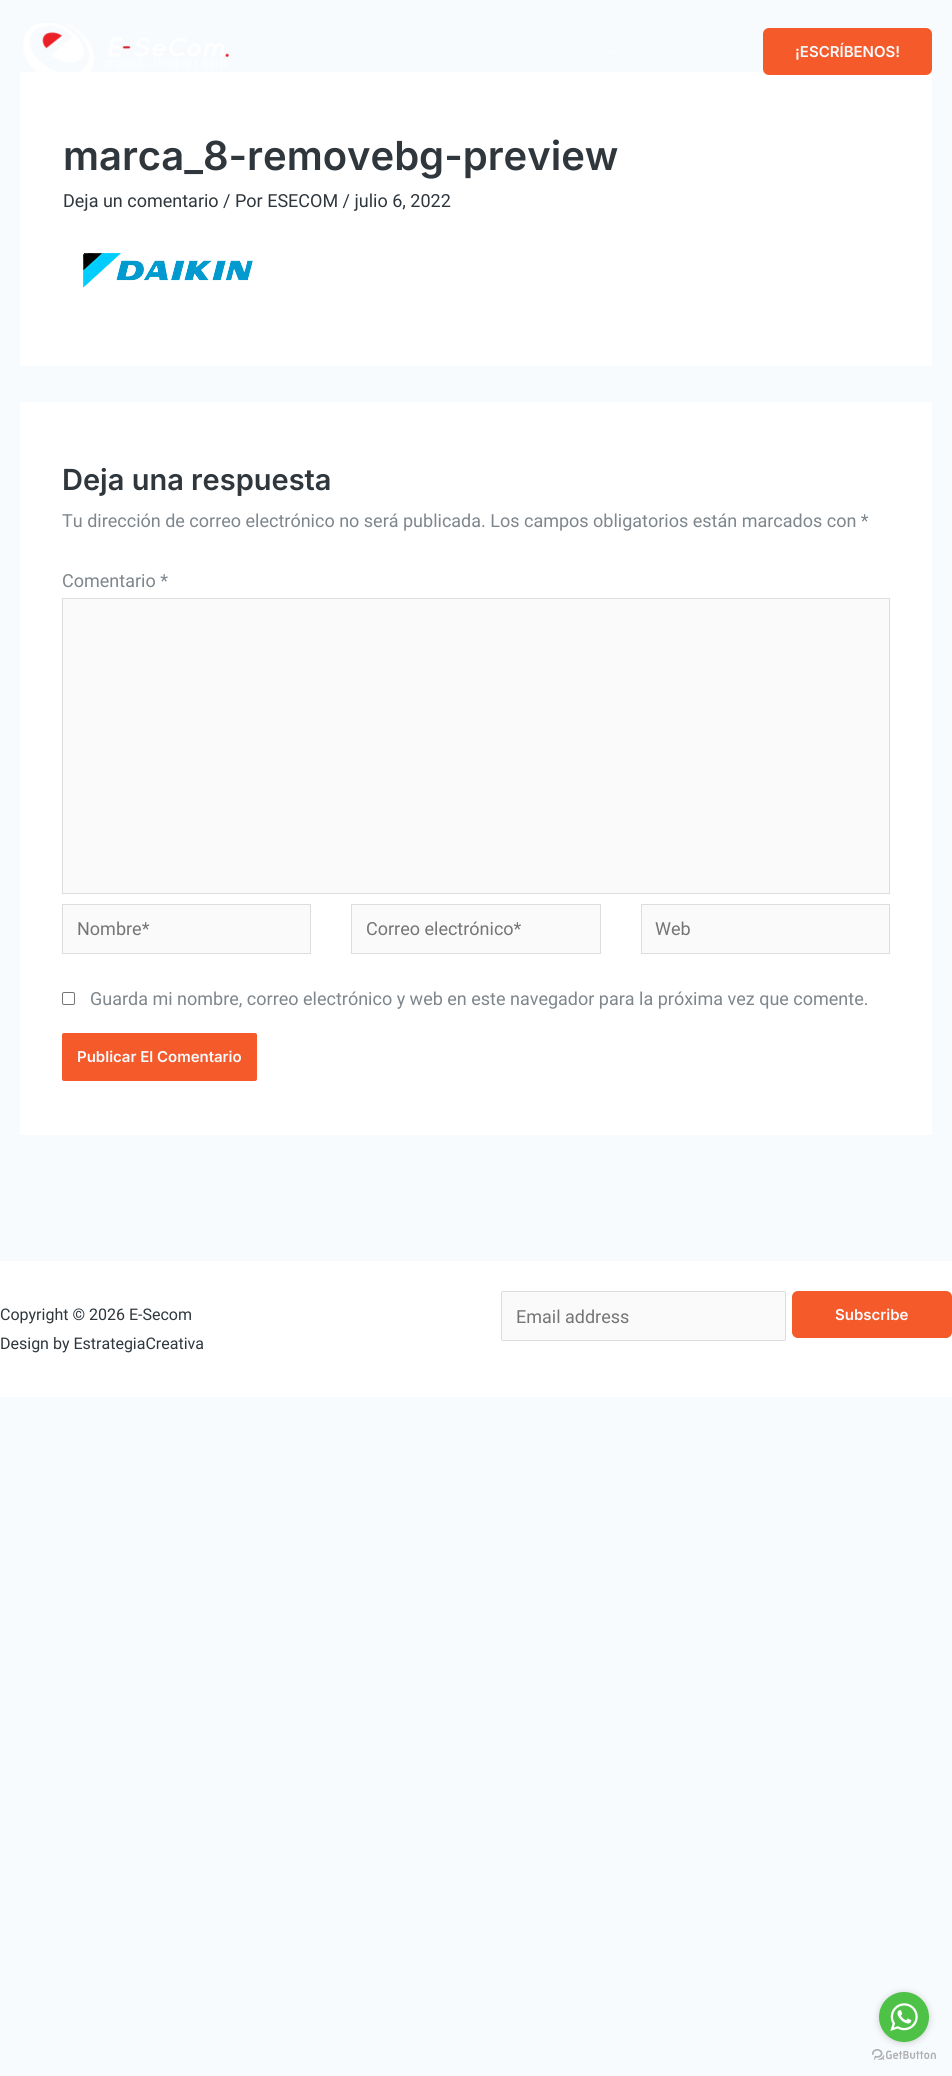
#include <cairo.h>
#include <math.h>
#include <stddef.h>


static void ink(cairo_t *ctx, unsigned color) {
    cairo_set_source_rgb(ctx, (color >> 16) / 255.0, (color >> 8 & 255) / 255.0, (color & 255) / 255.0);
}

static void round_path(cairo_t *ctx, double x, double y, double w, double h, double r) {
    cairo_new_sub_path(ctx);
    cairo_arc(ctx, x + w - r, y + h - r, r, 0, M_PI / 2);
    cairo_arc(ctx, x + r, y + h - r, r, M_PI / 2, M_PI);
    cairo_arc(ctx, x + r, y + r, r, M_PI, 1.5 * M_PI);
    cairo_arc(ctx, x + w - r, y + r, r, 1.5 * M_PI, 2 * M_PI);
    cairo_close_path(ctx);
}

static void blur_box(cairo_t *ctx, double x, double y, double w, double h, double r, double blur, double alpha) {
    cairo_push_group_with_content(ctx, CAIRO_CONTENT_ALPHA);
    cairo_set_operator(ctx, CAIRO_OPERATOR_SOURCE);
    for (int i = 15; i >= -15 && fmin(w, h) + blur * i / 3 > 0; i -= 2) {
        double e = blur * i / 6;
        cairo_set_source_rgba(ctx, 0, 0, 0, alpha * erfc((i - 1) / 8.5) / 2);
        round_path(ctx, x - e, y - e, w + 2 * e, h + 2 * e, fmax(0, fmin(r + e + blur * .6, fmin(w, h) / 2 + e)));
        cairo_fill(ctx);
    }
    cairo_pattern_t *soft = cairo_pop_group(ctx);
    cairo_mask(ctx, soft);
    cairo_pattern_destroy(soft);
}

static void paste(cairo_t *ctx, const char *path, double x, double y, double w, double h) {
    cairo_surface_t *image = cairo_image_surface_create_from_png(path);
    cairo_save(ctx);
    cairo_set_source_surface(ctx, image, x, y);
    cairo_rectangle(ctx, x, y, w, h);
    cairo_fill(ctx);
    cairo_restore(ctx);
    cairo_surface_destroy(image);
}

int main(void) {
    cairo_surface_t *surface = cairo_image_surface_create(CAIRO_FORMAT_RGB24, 952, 2076);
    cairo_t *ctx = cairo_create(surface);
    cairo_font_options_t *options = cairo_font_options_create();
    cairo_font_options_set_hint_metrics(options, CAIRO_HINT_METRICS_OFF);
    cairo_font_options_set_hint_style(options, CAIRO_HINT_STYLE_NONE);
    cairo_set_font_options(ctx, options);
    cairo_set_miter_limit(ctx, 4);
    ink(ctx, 0xF8FBFE);
    cairo_paint(ctx);
    paste(ctx, "media/1.png", 23, 23, 206, 49);
    paste(ctx, "media/2.png", 606, 49, 9, 5);
    ink(ctx, 0xFFFFFF);
    cairo_rectangle(ctx, 20, 72, 912, 294);
    cairo_fill(ctx);
    ink(ctx, 0xF45A2A);
    round_path(ctx, 763, 28, 169, 47, 6);
    cairo_fill(ctx);
    cairo_select_font_face(ctx, "Inter SemiBold", CAIRO_FONT_SLANT_NORMAL, CAIRO_FONT_WEIGHT_NORMAL);
    cairo_set_font_size(ctx, 15);
    ink(ctx, 0xF8FBFE);
    cairo_move_to(ctx, 795, 57);
    cairo_show_text(ctx, "¡ESCRÍBENOS!");
    cairo_set_font_size(ctx, 40);
    ink(ctx, 0x2F373D);
    cairo_move_to(ctx, 63, 170);
    cairo_show_text(ctx, "marca_8-removebg-preview");
    cairo_select_font_face(ctx, "Roboto", CAIRO_FONT_SLANT_NORMAL, CAIRO_FONT_WEIGHT_NORMAL);
    cairo_set_font_size(ctx, 18);
    cairo_move_to(ctx, 63, 207);
    cairo_show_text(ctx, "Deja un comentario / Por ESECOM / julio 6, 2022");
    paste(ctx, "media/3.png", 83, 253, 170, 35);
    ink(ctx, 0xFFFFFF);
    cairo_rectangle(ctx, 20, 402, 912, 733);
    cairo_fill(ctx);
    cairo_select_font_face(ctx, "Inter SemiBold", CAIRO_FONT_SLANT_NORMAL, CAIRO_FONT_WEIGHT_NORMAL);
    cairo_set_font_size(ctx, 29);
    ink(ctx, 0x2F373D);
    cairo_move_to(ctx, 62, 490);
    cairo_show_text(ctx, "Deja una respuesta");
    cairo_select_font_face(ctx, "Roboto", CAIRO_FONT_SLANT_NORMAL, CAIRO_FONT_WEIGHT_NORMAL);
    cairo_set_font_size(ctx, 18);
    ink(ctx, 0x7E868C);
    cairo_move_to(ctx, 62, 527);
    cairo_show_text(ctx, "Tu dirección de correo electrónico no será publicada. Los campos obligatorios están marcados con *");
    cairo_move_to(ctx, 62, 587);
    cairo_show_text(ctx, "Comentario *");
    ink(ctx, 0xFAFAFA);
    cairo_rectangle(ctx, 62.5, 598.5, 827, 295);
    cairo_fill_preserve(ctx);
    ink(ctx, 0xDDDDDD);
    cairo_set_line_width(ctx, 1);
    cairo_stroke(ctx);
    ink(ctx, 0xFAFAFA);
    cairo_rectangle(ctx, 62.5, 904.5, 248, 49);
    cairo_fill_preserve(ctx);
    ink(ctx, 0xDDDDDD);
    cairo_stroke(ctx);
    ink(ctx, 0x757575);
    cairo_move_to(ctx, 77, 935);
    cairo_show_text(ctx, "Nombre*");
    ink(ctx, 0xFAFAFA);
    cairo_rectangle(ctx, 351.5, 904.5, 249, 49);
    cairo_fill_preserve(ctx);
    ink(ctx, 0xDDDDDD);
    cairo_stroke(ctx);
    ink(ctx, 0x757575);
    cairo_move_to(ctx, 366, 935);
    cairo_show_text(ctx, "Correo electrónico*");
    ink(ctx, 0xFAFAFA);
    cairo_rectangle(ctx, 641.5, 904.5, 248, 49);
    cairo_fill_preserve(ctx);
    ink(ctx, 0xDDDDDD);
    cairo_stroke(ctx);
    ink(ctx, 0x757575);
    cairo_move_to(ctx, 655, 935);
    cairo_show_text(ctx, "Web");
    round_path(ctx, 62.5, 992.5, 12, 12, 1.5);
    ink(ctx, 0x767676);
    cairo_stroke(ctx);
    ink(ctx, 0x7E868C);
    cairo_move_to(ctx, 90, 1005);
    cairo_show_text(ctx, "Guarda mi nombre, correo electrónico y web en este navegador para la próxima vez que comente.");
    ink(ctx, 0xF45A2A);
    round_path(ctx, 62, 1033, 195, 48, 2);
    cairo_fill(ctx);
    cairo_select_font_face(ctx, "Inter SemiBold", CAIRO_FONT_SLANT_NORMAL, CAIRO_FONT_WEIGHT_NORMAL);
    cairo_set_font_size(ctx, 15);
    ink(ctx, 0xF8FBFE);
    cairo_move_to(ctx, 77, 1062);
    cairo_show_text(ctx, "Publicar El Comentario");
    ink(ctx, 0xFFFFFF);
    cairo_rectangle(ctx, 0, 1261, 952, 136);
    cairo_fill(ctx);
    cairo_select_font_face(ctx, "Roboto", CAIRO_FONT_SLANT_NORMAL, CAIRO_FONT_WEIGHT_NORMAL);
    cairo_set_font_size(ctx, 16);
    ink(ctx, 0x2F373D);
    cairo_move_to(ctx, 0, 1320);
    cairo_show_text(ctx, "Copyright © 2026 E-Secom");
    cairo_move_to(ctx, 0, 1349);
    cairo_show_text(ctx, "Design by EstrategiaCreativa");
    ink(ctx, 0xFAFAFA);
    round_path(ctx, 501.5, 1291.5, 284, 49, 1.5);
    cairo_fill_preserve(ctx);
    ink(ctx, 0xDDDDDD);
    cairo_stroke(ctx);
    cairo_set_font_size(ctx, 18);
    ink(ctx, 0x757575);
    cairo_move_to(ctx, 516, 1323);
    cairo_show_text(ctx, "Email address");
    ink(ctx, 0xF45A2A);
    round_path(ctx, 792, 1291, 160, 47, 6);
    cairo_fill(ctx);
    cairo_select_font_face(ctx, "Inter SemiBold", CAIRO_FONT_SLANT_NORMAL, CAIRO_FONT_WEIGHT_NORMAL);
    cairo_set_font_size(ctx, 15);
    ink(ctx, 0xF8FBFE);
    cairo_move_to(ctx, 835, 1320);
    cairo_show_text(ctx, "Subscribe");
    paste(ctx, "media/5.png", 872, 2049, 64, 11);
    ink(ctx, 0x888888);
    blur_box(ctx, 879, 1993, 50, 50, 25, 3.5, 0.4);
    ink(ctx, 0x4DC247);
    cairo_arc(ctx, 904, 2017, 25, 0, 2 * M_PI);
    cairo_fill(ctx);
    paste(ctx, "media/4.png", 890, 2003, 28, 28);
    cairo_surface_write_to_png(surface, "image.png");
    cairo_font_options_destroy(options);
    cairo_destroy(ctx);
    cairo_surface_destroy(surface);
    return 0;
}
